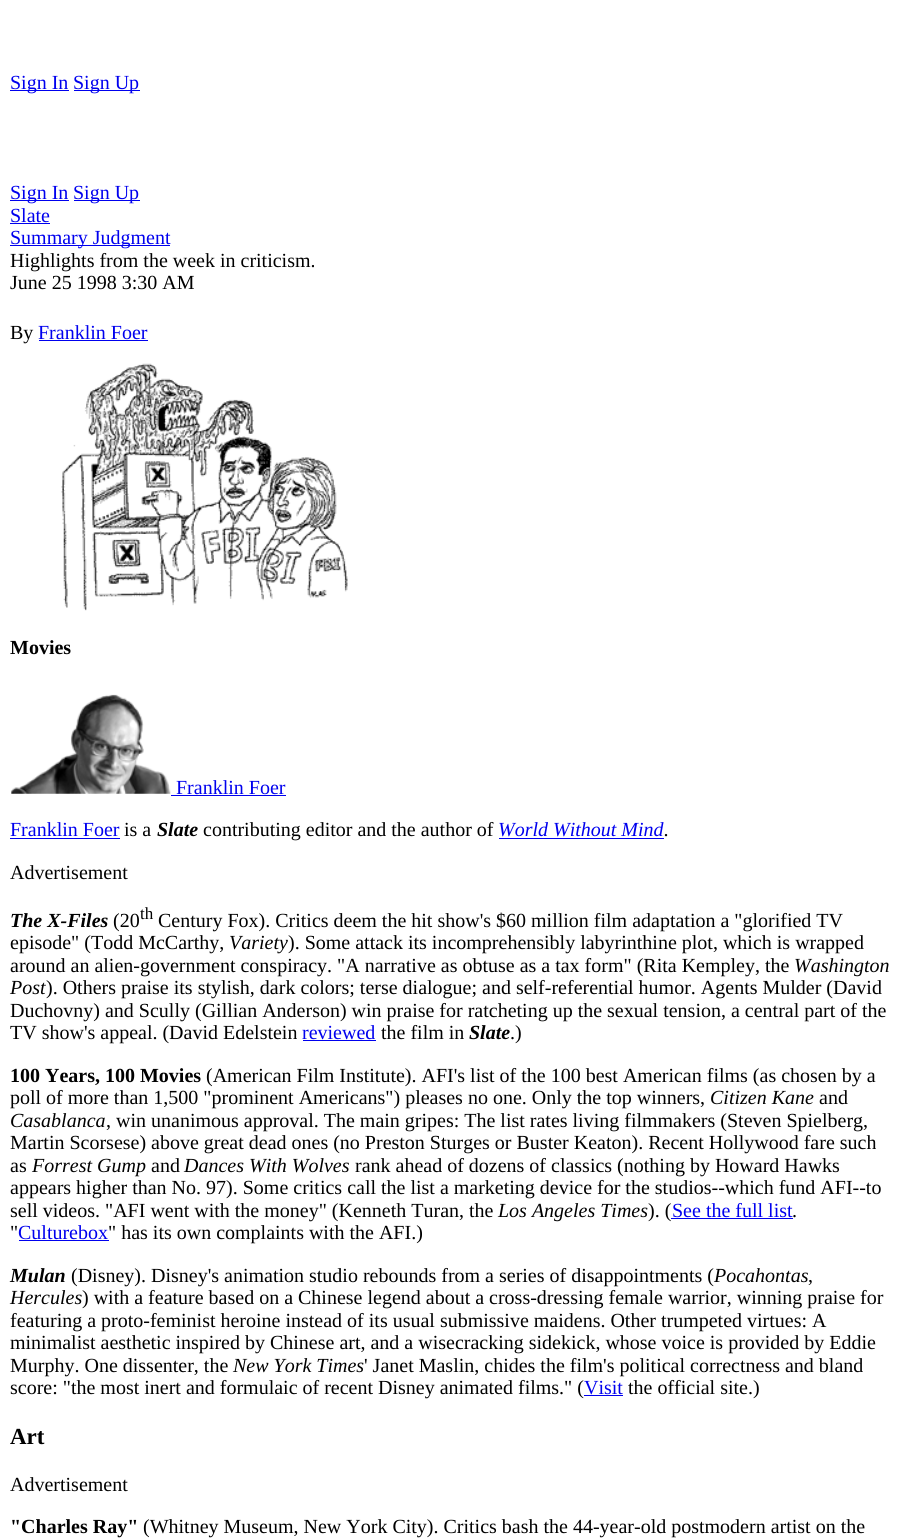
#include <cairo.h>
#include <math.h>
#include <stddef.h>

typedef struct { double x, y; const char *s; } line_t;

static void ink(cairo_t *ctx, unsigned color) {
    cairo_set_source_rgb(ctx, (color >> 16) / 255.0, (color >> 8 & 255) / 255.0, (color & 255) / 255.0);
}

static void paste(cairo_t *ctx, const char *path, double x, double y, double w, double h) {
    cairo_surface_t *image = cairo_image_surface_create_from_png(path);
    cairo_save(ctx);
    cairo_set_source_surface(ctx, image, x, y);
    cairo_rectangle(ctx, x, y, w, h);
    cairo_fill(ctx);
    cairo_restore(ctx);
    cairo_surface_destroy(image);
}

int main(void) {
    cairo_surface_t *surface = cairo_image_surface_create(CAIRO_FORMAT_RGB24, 903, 1540);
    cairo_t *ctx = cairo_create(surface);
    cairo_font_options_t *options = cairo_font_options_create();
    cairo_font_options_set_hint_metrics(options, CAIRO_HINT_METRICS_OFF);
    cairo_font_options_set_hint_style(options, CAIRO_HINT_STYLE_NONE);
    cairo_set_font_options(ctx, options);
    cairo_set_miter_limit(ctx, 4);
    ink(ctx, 0xFFFFFF);
    cairo_paint(ctx);
    ink(ctx, 0x0000EE);
    cairo_rectangle(ctx, 10, 90, 59, 1);
    cairo_fill(ctx);
    cairo_select_font_face(ctx, "Liberation Serif", CAIRO_FONT_SLANT_NORMAL, CAIRO_FONT_WEIGHT_NORMAL);
    cairo_set_font_size(ctx, 20);
    cairo_move_to(ctx, 10, 89);
    cairo_show_text(ctx, "Sign In");
    cairo_rectangle(ctx, 74, 90, 66, 1);
    cairo_fill(ctx);
    cairo_move_to(ctx, 73, 89);
    cairo_show_text(ctx, "Sign Up");
    cairo_rectangle(ctx, 10, 200, 59, 1);
    cairo_fill(ctx);
    cairo_move_to(ctx, 10, 199);
    cairo_show_text(ctx, "Sign In");
    cairo_rectangle(ctx, 74, 200, 66, 1);
    cairo_fill(ctx);
    cairo_move_to(ctx, 73, 199);
    cairo_show_text(ctx, "Sign Up");
    cairo_move_to(ctx, 10, 222);
    cairo_show_text(ctx, "Slate");
    cairo_rectangle(ctx, 10, 223, 40, 1);
    cairo_fill(ctx);
    cairo_rectangle(ctx, 10, 245, 160, 1);
    cairo_fill(ctx);
    cairo_move_to(ctx, 10, 244);
    cairo_show_text(ctx, "Summary Judgment");
    ink(ctx, 0x000000);
    {
        static const line_t items[] = {
            {10, 267, "Highlights from the week in criticism."},
            {10, 289, "June 25 1998 3:30 AM"},
            {10, 339, "By"},
        };
        for (size_t i = 0; i < sizeof items / sizeof *items; i++) {
            cairo_move_to(ctx, items[i].x, items[i].y);
            cairo_show_text(ctx, items[i].s);
        }
    }
    ink(ctx, 0x0000EE);
    cairo_move_to(ctx, 38, 339);
    cairo_show_text(ctx, "Franklin Foer");
    cairo_rectangle(ctx, 39, 340, 109, 1);
    cairo_fill(ctx);
    paste(ctx, "media/1.png", 61, 363, 287, 248);
    cairo_select_font_face(ctx, "Liberation Serif", CAIRO_FONT_SLANT_NORMAL, CAIRO_FONT_WEIGHT_BOLD);
    ink(ctx, 0x000000);
    cairo_move_to(ctx, 10, 654);
    cairo_show_text(ctx, "Movies");
    paste(ctx, "media/2.png", 11, 694, 160, 100);
    cairo_select_font_face(ctx, "Liberation Serif", CAIRO_FONT_SLANT_NORMAL, CAIRO_FONT_WEIGHT_NORMAL);
    ink(ctx, 0x0000EE);
    cairo_move_to(ctx, 176, 794);
    cairo_show_text(ctx, "Franklin Foer");
    cairo_rectangle(ctx, 171, 795, 115, 1);
    cairo_fill(ctx);
    cairo_move_to(ctx, 10, 836);
    cairo_show_text(ctx, "Franklin Foer");
    cairo_rectangle(ctx, 10, 838, 110, 1);
    cairo_fill(ctx);
    ink(ctx, 0x000000);
    cairo_move_to(ctx, 124, 836);
    cairo_show_text(ctx, "is a");
    cairo_select_font_face(ctx, "Liberation Serif", CAIRO_FONT_SLANT_ITALIC, CAIRO_FONT_WEIGHT_BOLD);
    cairo_move_to(ctx, 157, 836);
    cairo_show_text(ctx, "Slate");
    cairo_select_font_face(ctx, "Liberation Serif", CAIRO_FONT_SLANT_NORMAL, CAIRO_FONT_WEIGHT_NORMAL);
    cairo_move_to(ctx, 203, 836);
    cairo_show_text(ctx, "contributing editor and the author of");
    cairo_select_font_face(ctx, "Liberation Serif", CAIRO_FONT_SLANT_ITALIC, CAIRO_FONT_WEIGHT_NORMAL);
    ink(ctx, 0x0000EE);
    cairo_move_to(ctx, 498, 836);
    cairo_show_text(ctx, "World Without Mind");
    ink(ctx, 0x000000);
    cairo_move_to(ctx, 664, 836);
    cairo_show_text(ctx, ".");
    ink(ctx, 0x0000EE);
    cairo_rectangle(ctx, 499, 838, 165, 1);
    cairo_fill(ctx);
    cairo_select_font_face(ctx, "Liberation Serif", CAIRO_FONT_SLANT_NORMAL, CAIRO_FONT_WEIGHT_NORMAL);
    ink(ctx, 0x000000);
    cairo_move_to(ctx, 10, 879);
    cairo_show_text(ctx, "Advertisement");
    cairo_select_font_face(ctx, "Liberation Serif", CAIRO_FONT_SLANT_ITALIC, CAIRO_FONT_WEIGHT_BOLD);
    cairo_move_to(ctx, 10, 927);
    cairo_show_text(ctx, "The X-Files");
    cairo_select_font_face(ctx, "Liberation Serif", CAIRO_FONT_SLANT_NORMAL, CAIRO_FONT_WEIGHT_NORMAL);
    cairo_move_to(ctx, 113, 927);
    cairo_show_text(ctx, "(20");
    cairo_set_font_size(ctx, 17);
    cairo_move_to(ctx, 140, 919);
    cairo_show_text(ctx, "th");
    cairo_set_font_size(ctx, 20);
    cairo_move_to(ctx, 158, 927);
    cairo_show_text(ctx, "Century Fox). Critics deem the hit show's $60 million film adaptation a \"glorified TV");
    cairo_move_to(ctx, 10, 949);
    cairo_show_text(ctx, "episode\" (Todd McCarthy,");
    cairo_select_font_face(ctx, "Liberation Serif", CAIRO_FONT_SLANT_ITALIC, CAIRO_FONT_WEIGHT_NORMAL);
    cairo_move_to(ctx, 229, 949);
    cairo_show_text(ctx, "Variety");
    cairo_select_font_face(ctx, "Liberation Serif", CAIRO_FONT_SLANT_NORMAL, CAIRO_FONT_WEIGHT_NORMAL);
    cairo_move_to(ctx, 288, 949);
    cairo_show_text(ctx, "). Some attack its incomprehensibly labyrinthine plot, which is wrapped");
    cairo_move_to(ctx, 10, 972);
    cairo_show_text(ctx, "around an alien-government conspiracy. \"A narrative as obtuse as a tax form\" (Rita Kempley, the");
    cairo_select_font_face(ctx, "Liberation Serif", CAIRO_FONT_SLANT_ITALIC, CAIRO_FONT_WEIGHT_NORMAL);
    cairo_move_to(ctx, 794, 972);
    cairo_show_text(ctx, "Washington");
    cairo_move_to(ctx, 10, 994);
    cairo_show_text(ctx, "Post");
    cairo_select_font_face(ctx, "Liberation Serif", CAIRO_FONT_SLANT_NORMAL, CAIRO_FONT_WEIGHT_NORMAL);
    {
        static const line_t items[] = {
            {46, 994, "). Others praise its stylish, dark colors; terse dialogue; and self-referential humor. Agents Mulder (David"},
            {10, 1017, "Duchovny) and Scully (Gillian Anderson) win praise for ratcheting up the sexual tension, a central part of the"},
            {10, 1039, "TV show's appeal. (David Edelstein"},
        };
        for (size_t i = 0; i < sizeof items / sizeof *items; i++) {
            cairo_move_to(ctx, items[i].x, items[i].y);
            cairo_show_text(ctx, items[i].s);
        }
    }
    ink(ctx, 0x0000EE);
    cairo_move_to(ctx, 302, 1039);
    cairo_show_text(ctx, "reviewed");
    cairo_rectangle(ctx, 303, 1040, 73, 1);
    cairo_fill(ctx);
    ink(ctx, 0x000000);
    cairo_move_to(ctx, 381, 1039);
    cairo_show_text(ctx, "the film in");
    cairo_select_font_face(ctx, "Liberation Serif", CAIRO_FONT_SLANT_ITALIC, CAIRO_FONT_WEIGHT_BOLD);
    cairo_move_to(ctx, 469, 1039);
    cairo_show_text(ctx, "Slate");
    cairo_select_font_face(ctx, "Liberation Serif", CAIRO_FONT_SLANT_NORMAL, CAIRO_FONT_WEIGHT_NORMAL);
    cairo_move_to(ctx, 510, 1039);
    cairo_show_text(ctx, ".)");
    cairo_select_font_face(ctx, "Liberation Serif", CAIRO_FONT_SLANT_NORMAL, CAIRO_FONT_WEIGHT_BOLD);
    cairo_move_to(ctx, 10, 1082);
    cairo_show_text(ctx, "100 Years, 100 Movies");
    cairo_select_font_face(ctx, "Liberation Serif", CAIRO_FONT_SLANT_NORMAL, CAIRO_FONT_WEIGHT_NORMAL);
    cairo_move_to(ctx, 206, 1082);
    cairo_show_text(ctx, "(American Film Institute). AFI's list of the 100 best American films (as chosen by a");
    cairo_move_to(ctx, 10, 1104);
    cairo_show_text(ctx, "poll of more than 1,500 \"prominent Americans\") pleases no one. Only the top winners,");
    cairo_select_font_face(ctx, "Liberation Serif", CAIRO_FONT_SLANT_ITALIC, CAIRO_FONT_WEIGHT_NORMAL);
    cairo_move_to(ctx, 710, 1104);
    cairo_show_text(ctx, "Citizen Kane");
    cairo_select_font_face(ctx, "Liberation Serif", CAIRO_FONT_SLANT_NORMAL, CAIRO_FONT_WEIGHT_NORMAL);
    cairo_move_to(ctx, 819, 1104);
    cairo_show_text(ctx, "and");
    cairo_select_font_face(ctx, "Liberation Serif", CAIRO_FONT_SLANT_ITALIC, CAIRO_FONT_WEIGHT_NORMAL);
    cairo_move_to(ctx, 10, 1127);
    cairo_show_text(ctx, "Casablanca");
    cairo_select_font_face(ctx, "Liberation Serif", CAIRO_FONT_SLANT_NORMAL, CAIRO_FONT_WEIGHT_NORMAL);
    {
        static const line_t items[] = {
            {106, 1127, ", win unanimous approval. The main gripes: The list rates living filmmakers (Steven Spielberg,"},
            {10, 1149, "Martin Scorsese) above great dead ones (no Preston Sturges or Buster Keaton). Recent Hollywood fare such"},
            {10, 1172, "as"},
        };
        for (size_t i = 0; i < sizeof items / sizeof *items; i++) {
            cairo_move_to(ctx, items[i].x, items[i].y);
            cairo_show_text(ctx, items[i].s);
        }
    }
    cairo_select_font_face(ctx, "Liberation Serif", CAIRO_FONT_SLANT_ITALIC, CAIRO_FONT_WEIGHT_NORMAL);
    cairo_move_to(ctx, 32, 1172);
    cairo_show_text(ctx, "Forrest Gump");
    cairo_select_font_face(ctx, "Liberation Serif", CAIRO_FONT_SLANT_NORMAL, CAIRO_FONT_WEIGHT_NORMAL);
    cairo_move_to(ctx, 151, 1172);
    cairo_show_text(ctx, "and");
    cairo_select_font_face(ctx, "Liberation Serif", CAIRO_FONT_SLANT_ITALIC, CAIRO_FONT_WEIGHT_NORMAL);
    cairo_move_to(ctx, 184, 1172);
    cairo_show_text(ctx, "Dances With Wolves");
    cairo_select_font_face(ctx, "Liberation Serif", CAIRO_FONT_SLANT_NORMAL, CAIRO_FONT_WEIGHT_NORMAL);
    {
        static const line_t items[] = {
            {355, 1172, "rank ahead of dozens of classics (nothing by Howard Hawks"},
            {10, 1194, "appears higher than No. 97). Some critics call the list a marketing device for the studios--which fund AFI--to"},
            {10, 1217, "sell videos. \"AFI went with the money\" (Kenneth Turan, the"},
        };
        for (size_t i = 0; i < sizeof items / sizeof *items; i++) {
            cairo_move_to(ctx, items[i].x, items[i].y);
            cairo_show_text(ctx, items[i].s);
        }
    }
    cairo_select_font_face(ctx, "Liberation Serif", CAIRO_FONT_SLANT_ITALIC, CAIRO_FONT_WEIGHT_NORMAL);
    cairo_move_to(ctx, 498, 1217);
    cairo_show_text(ctx, "Los Angeles Times");
    cairo_select_font_face(ctx, "Liberation Serif", CAIRO_FONT_SLANT_NORMAL, CAIRO_FONT_WEIGHT_NORMAL);
    cairo_move_to(ctx, 648, 1217);
    cairo_show_text(ctx, "). (");
    ink(ctx, 0x0000EE);
    cairo_move_to(ctx, 672, 1217);
    cairo_show_text(ctx, "See the full list");
    cairo_rectangle(ctx, 671, 1218, 122, 1);
    cairo_fill(ctx);
    ink(ctx, 0x000000);
    cairo_move_to(ctx, 792, 1217);
    cairo_show_text(ctx, ".");
    cairo_move_to(ctx, 10, 1239);
    cairo_show_text(ctx, "\"");
    ink(ctx, 0x0000EE);
    cairo_move_to(ctx, 18, 1239);
    cairo_show_text(ctx, "Culturebox");
    cairo_rectangle(ctx, 19, 1240, 90, 1);
    cairo_fill(ctx);
    ink(ctx, 0x000000);
    cairo_move_to(ctx, 108, 1239);
    cairo_show_text(ctx, "\" has its own complaints with the AFI.)");
    cairo_select_font_face(ctx, "Liberation Serif", CAIRO_FONT_SLANT_ITALIC, CAIRO_FONT_WEIGHT_BOLD);
    cairo_move_to(ctx, 10, 1282);
    cairo_show_text(ctx, "Mulan");
    cairo_select_font_face(ctx, "Liberation Serif", CAIRO_FONT_SLANT_NORMAL, CAIRO_FONT_WEIGHT_NORMAL);
    cairo_move_to(ctx, 71, 1282);
    cairo_show_text(ctx, "(Disney). Disney's animation studio rebounds from a series of disappointments (");
    cairo_select_font_face(ctx, "Liberation Serif", CAIRO_FONT_SLANT_ITALIC, CAIRO_FONT_WEIGHT_NORMAL);
    cairo_move_to(ctx, 714, 1282);
    cairo_show_text(ctx, "Pocahontas");
    cairo_select_font_face(ctx, "Liberation Serif", CAIRO_FONT_SLANT_NORMAL, CAIRO_FONT_WEIGHT_NORMAL);
    cairo_move_to(ctx, 808, 1282);
    cairo_show_text(ctx, ",");
    cairo_select_font_face(ctx, "Liberation Serif", CAIRO_FONT_SLANT_ITALIC, CAIRO_FONT_WEIGHT_NORMAL);
    cairo_move_to(ctx, 10, 1304);
    cairo_show_text(ctx, "Hercules");
    cairo_select_font_face(ctx, "Liberation Serif", CAIRO_FONT_SLANT_NORMAL, CAIRO_FONT_WEIGHT_NORMAL);
    {
        static const line_t items[] = {
            {82, 1304, ") with a feature based on a Chinese legend about a cross-dressing female warrior, winning praise for"},
            {10, 1327, "featuring a proto-feminist heroine instead of its usual submissive maidens. Other trumpeted virtues: A"},
            {10, 1349, "minimalist aesthetic inspired by Chinese art, and a wisecracking sidekick, whose voice is provided by Eddie"},
            {10, 1372, "Murphy. One dissenter, the"},
        };
        for (size_t i = 0; i < sizeof items / sizeof *items; i++) {
            cairo_move_to(ctx, items[i].x, items[i].y);
            cairo_show_text(ctx, items[i].s);
        }
    }
    cairo_select_font_face(ctx, "Liberation Serif", CAIRO_FONT_SLANT_ITALIC, CAIRO_FONT_WEIGHT_NORMAL);
    cairo_move_to(ctx, 233, 1372);
    cairo_show_text(ctx, "New York Times");
    cairo_select_font_face(ctx, "Liberation Serif", CAIRO_FONT_SLANT_NORMAL, CAIRO_FONT_WEIGHT_NORMAL);
    cairo_move_to(ctx, 364, 1372);
    cairo_show_text(ctx, "' Janet Maslin, chides the film's political correctness and bland");
    cairo_move_to(ctx, 10, 1394);
    cairo_show_text(ctx, "score: \"the most inert and formulaic of recent Disney animated films.\" (");
    ink(ctx, 0x0000EE);
    cairo_move_to(ctx, 584, 1394);
    cairo_show_text(ctx, "Visit");
    cairo_rectangle(ctx, 584, 1395, 39, 1);
    cairo_fill(ctx);
    ink(ctx, 0x000000);
    cairo_move_to(ctx, 628, 1394);
    cairo_show_text(ctx, "the official site.)");
    cairo_select_font_face(ctx, "Liberation Serif", CAIRO_FONT_SLANT_NORMAL, CAIRO_FONT_WEIGHT_BOLD);
    cairo_set_font_size(ctx, 23);
    cairo_move_to(ctx, 10, 1444);
    cairo_show_text(ctx, "Art");
    cairo_select_font_face(ctx, "Liberation Serif", CAIRO_FONT_SLANT_NORMAL, CAIRO_FONT_WEIGHT_NORMAL);
    cairo_set_font_size(ctx, 20);
    cairo_move_to(ctx, 10, 1491);
    cairo_show_text(ctx, "Advertisement");
    cairo_select_font_face(ctx, "Liberation Serif", CAIRO_FONT_SLANT_NORMAL, CAIRO_FONT_WEIGHT_BOLD);
    cairo_move_to(ctx, 10, 1533);
    cairo_show_text(ctx, "\"Charles Ray\"");
    cairo_select_font_face(ctx, "Liberation Serif", CAIRO_FONT_SLANT_NORMAL, CAIRO_FONT_WEIGHT_NORMAL);
    cairo_move_to(ctx, 143, 1533);
    cairo_show_text(ctx, "(Whitney Museum, New York City). Critics bash the 44-year-old postmodern artist on the");
    cairo_surface_write_to_png(surface, "image.png");
    cairo_font_options_destroy(options);
    cairo_destroy(ctx);
    cairo_surface_destroy(surface);
    return 0;
}
